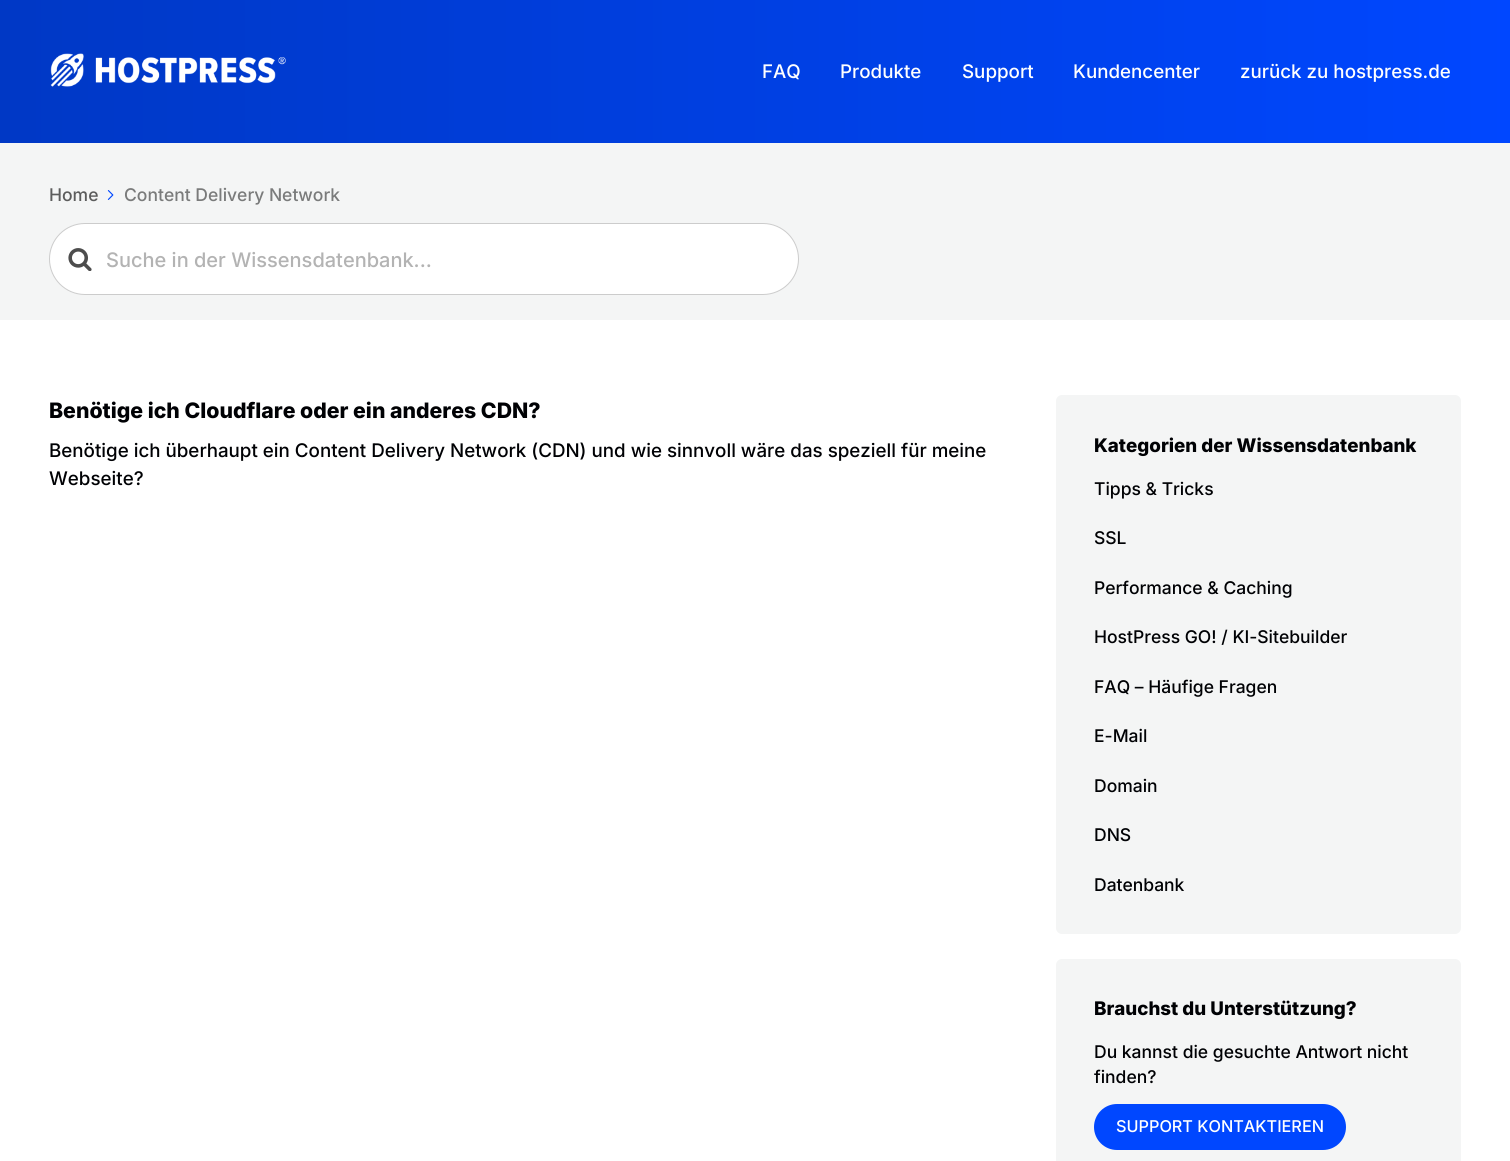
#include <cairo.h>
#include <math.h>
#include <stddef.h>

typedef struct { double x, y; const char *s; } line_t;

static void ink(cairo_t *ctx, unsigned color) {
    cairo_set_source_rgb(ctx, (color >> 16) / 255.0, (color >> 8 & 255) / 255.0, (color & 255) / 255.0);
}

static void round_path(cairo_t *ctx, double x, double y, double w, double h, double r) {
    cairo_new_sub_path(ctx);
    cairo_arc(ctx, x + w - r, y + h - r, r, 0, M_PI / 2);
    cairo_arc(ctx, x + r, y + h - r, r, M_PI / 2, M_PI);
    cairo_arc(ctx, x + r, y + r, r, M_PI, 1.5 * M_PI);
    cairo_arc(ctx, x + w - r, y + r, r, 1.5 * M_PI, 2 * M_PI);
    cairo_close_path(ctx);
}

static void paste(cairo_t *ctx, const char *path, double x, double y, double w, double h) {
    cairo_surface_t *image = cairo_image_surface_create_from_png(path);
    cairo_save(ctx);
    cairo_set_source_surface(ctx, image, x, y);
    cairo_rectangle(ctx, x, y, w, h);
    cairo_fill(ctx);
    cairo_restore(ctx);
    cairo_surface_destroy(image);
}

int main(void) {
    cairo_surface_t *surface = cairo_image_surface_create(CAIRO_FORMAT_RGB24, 1510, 1161);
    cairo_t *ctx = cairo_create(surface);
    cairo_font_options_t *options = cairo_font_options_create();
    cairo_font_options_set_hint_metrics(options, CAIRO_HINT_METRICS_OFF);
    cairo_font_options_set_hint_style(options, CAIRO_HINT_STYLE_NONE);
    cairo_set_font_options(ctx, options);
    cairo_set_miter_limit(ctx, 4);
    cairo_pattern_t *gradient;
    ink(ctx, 0xFFFFFF);
    cairo_paint(ctx);
    gradient = cairo_pattern_create_linear(0, 71, 1510, 71);
    cairo_pattern_add_color_stop_rgba(gradient, 0, 0, 0.22, 0.773, 1);
    cairo_pattern_add_color_stop_rgba(gradient, 1, 0, 0.278, 1, 1);
    cairo_set_source(ctx, gradient);
    cairo_pattern_destroy(gradient);
    cairo_rectangle(ctx, 0, 0, 1510, 143);
    cairo_fill(ctx);
    paste(ctx, "media/1.png", 50, 53, 236, 34);
    cairo_select_font_face(ctx, "Inter Medium", CAIRO_FONT_SLANT_NORMAL, CAIRO_FONT_WEIGHT_NORMAL);
    cairo_set_font_size(ctx, 18.75);
    ink(ctx, 0xFFFFFF);
    {
        static const line_t items[] = {
            {762, 78, "FAQ"},
            {840, 78, "Produkte"},
            {962, 78, "Support"},
            {1073, 78, "Kundencenter"},
            {1240, 78, "zurück zu hostpress.de"},
        };
        for (size_t i = 0; i < sizeof items / sizeof *items; i++) {
            cairo_move_to(ctx, items[i].x, items[i].y);
            cairo_show_text(ctx, items[i].s);
        }
    }
    ink(ctx, 0xF4F5F5);
    cairo_rectangle(ctx, 0, 143, 1510, 177);
    cairo_fill(ctx);
    cairo_set_font_size(ctx, 17.5);
    ink(ctx, 0x5C5C5C);
    cairo_move_to(ctx, 49, 201);
    cairo_show_text(ctx, "Home");
    paste(ctx, "media/2.png", 107, 190, 7, 10);
    ink(ctx, 0x7A7B7B);
    cairo_move_to(ctx, 124, 201);
    cairo_show_text(ctx, "Content Delivery Network");
    ink(ctx, 0xFFFFFF);
    round_path(ctx, 49.5, 223.5, 749, 71, 35.5);
    cairo_fill_preserve(ctx);
    ink(ctx, 0xCCCCCC);
    cairo_set_line_width(ctx, 1);
    cairo_stroke(ctx);
    paste(ctx, "media/3.png", 68, 248, 24, 23);
    cairo_set_font_size(ctx, 20);
    ink(ctx, 0xB3B3B3);
    cairo_move_to(ctx, 106, 267);
    cairo_show_text(ctx, "Suche in der Wissensdatenbank...");
    cairo_select_font_face(ctx, "Inter ExtraBold", CAIRO_FONT_SLANT_NORMAL, CAIRO_FONT_WEIGHT_NORMAL);
    cairo_set_font_size(ctx, 21.25);
    ink(ctx, 0x000104);
    cairo_move_to(ctx, 49, 418);
    cairo_show_text(ctx, "Benötige ich Cloudflare oder ein anderes CDN?");
    cairo_select_font_face(ctx, "Inter Medium", CAIRO_FONT_SLANT_NORMAL, CAIRO_FONT_WEIGHT_NORMAL);
    cairo_set_font_size(ctx, 18.75);
    cairo_move_to(ctx, 49, 457);
    cairo_show_text(ctx, "Benötige ich überhaupt ein Content Delivery Network (CDN) und wie sinnvoll wäre das speziell für meine");
    cairo_move_to(ctx, 49, 485);
    cairo_show_text(ctx, "Webseite?");
    ink(ctx, 0xF4F5F5);
    round_path(ctx, 1056, 395, 405, 539, 6);
    cairo_fill(ctx);
    cairo_select_font_face(ctx, "Inter ExtraBold", CAIRO_FONT_SLANT_NORMAL, CAIRO_FONT_WEIGHT_NORMAL);
    ink(ctx, 0x000104);
    cairo_move_to(ctx, 1094, 452);
    cairo_show_text(ctx, "Kategorien der Wissensdatenbank");
    cairo_select_font_face(ctx, "Inter Medium", CAIRO_FONT_SLANT_NORMAL, CAIRO_FONT_WEIGHT_NORMAL);
    cairo_set_font_size(ctx, 17.5);
    {
        static const line_t items[] = {
            {1094, 495, "Tipps & Tricks"},
            {1094, 544, "SSL"},
            {1094, 594, "Performance & Caching"},
            {1094, 643, "HostPress GO! / KI-Sitebuilder"},
            {1094, 693, "FAQ – Häufige Fragen"},
            {1094, 742, "E-Mail"},
            {1094, 792, "Domain"},
            {1094, 841, "DNS"},
            {1094, 891, "Datenbank"},
        };
        for (size_t i = 0; i < sizeof items / sizeof *items; i++) {
            cairo_move_to(ctx, items[i].x, items[i].y);
            cairo_show_text(ctx, items[i].s);
        }
    }
    ink(ctx, 0xF4F5F5);
    round_path(ctx, 1056, 959, 405, 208, 6);
    cairo_fill(ctx);
    cairo_select_font_face(ctx, "Inter ExtraBold", CAIRO_FONT_SLANT_NORMAL, CAIRO_FONT_WEIGHT_NORMAL);
    cairo_set_font_size(ctx, 18.75);
    ink(ctx, 0x000104);
    cairo_move_to(ctx, 1094, 1015);
    cairo_show_text(ctx, "Brauchst du Unterstützung?");
    cairo_select_font_face(ctx, "Inter Medium", CAIRO_FONT_SLANT_NORMAL, CAIRO_FONT_WEIGHT_NORMAL);
    cairo_set_font_size(ctx, 17.5);
    cairo_move_to(ctx, 1094, 1058);
    cairo_show_text(ctx, "Du kannst die gesuchte Antwort nicht");
    cairo_move_to(ctx, 1094, 1083);
    cairo_show_text(ctx, "finden?");
    ink(ctx, 0x0047FF);
    round_path(ctx, 1094, 1104, 252, 46, 23);
    cairo_fill(ctx);
    cairo_set_font_size(ctx, 16.25);
    ink(ctx, 0xFFFFFF);
    cairo_move_to(ctx, 1116, 1132);
    cairo_show_text(ctx, "SUPPORT KONTAKTIEREN");
    cairo_surface_write_to_png(surface, "image.png");
    cairo_font_options_destroy(options);
    cairo_destroy(ctx);
    cairo_surface_destroy(surface);
    return 0;
}
